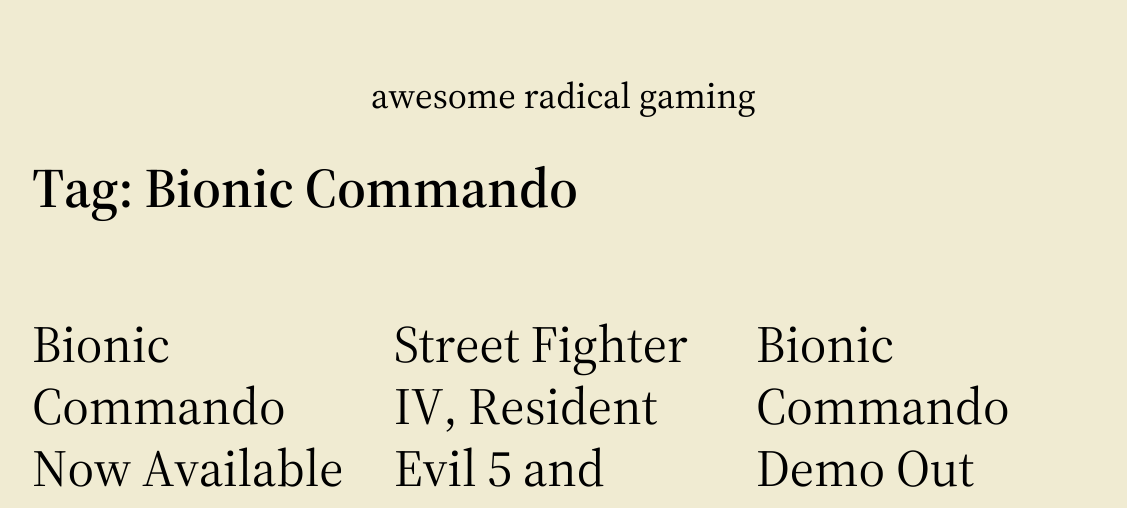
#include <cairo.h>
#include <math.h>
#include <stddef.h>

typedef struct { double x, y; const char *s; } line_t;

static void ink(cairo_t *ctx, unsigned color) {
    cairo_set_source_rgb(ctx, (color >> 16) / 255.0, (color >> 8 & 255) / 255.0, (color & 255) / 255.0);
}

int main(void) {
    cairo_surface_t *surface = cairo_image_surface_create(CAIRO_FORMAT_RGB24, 1127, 508);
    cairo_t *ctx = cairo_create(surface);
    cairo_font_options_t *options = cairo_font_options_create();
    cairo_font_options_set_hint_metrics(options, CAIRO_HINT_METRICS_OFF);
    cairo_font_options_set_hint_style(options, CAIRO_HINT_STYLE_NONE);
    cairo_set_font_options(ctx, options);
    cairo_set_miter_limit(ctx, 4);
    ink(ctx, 0xF0EBD2);
    cairo_paint(ctx);
    cairo_select_font_face(ctx, "Source Serif 4", CAIRO_FONT_SLANT_NORMAL, CAIRO_FONT_WEIGHT_NORMAL);
    cairo_set_font_size(ctx, 36);
    ink(ctx, 0x000000);
    cairo_move_to(ctx, 371, 108);
    cairo_show_text(ctx, "awesome radical gaming");
    cairo_select_font_face(ctx, "Source Serif 4 SemiBold", CAIRO_FONT_SLANT_NORMAL, CAIRO_FONT_WEIGHT_NORMAL);
    cairo_set_font_size(ctx, 55.9);
    cairo_move_to(ctx, 32, 207);
    cairo_show_text(ctx, "Tag: Bionic Commando");
    cairo_select_font_face(ctx, "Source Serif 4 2", CAIRO_FONT_SLANT_NORMAL, CAIRO_FONT_WEIGHT_NORMAL);
    cairo_set_font_size(ctx, 52);
    {
        static const line_t items[] = {
            {32, 362, "Bionic"},
            {32, 424, "Commando"},
            {32, 486, "Now Available"},
            {394, 362, "Street Fighter"},
            {394, 424, "IV, Resident"},
            {394, 486, "Evil 5 and"},
            {756, 362, "Bionic"},
            {756, 424, "Commando"},
            {756, 486, "Demo Out"},
        };
        for (size_t i = 0; i < sizeof items / sizeof *items; i++) {
            cairo_move_to(ctx, items[i].x, items[i].y);
            cairo_show_text(ctx, items[i].s);
        }
    }
    cairo_surface_write_to_png(surface, "image.png");
    cairo_font_options_destroy(options);
    cairo_destroy(ctx);
    cairo_surface_destroy(surface);
    return 0;
}
